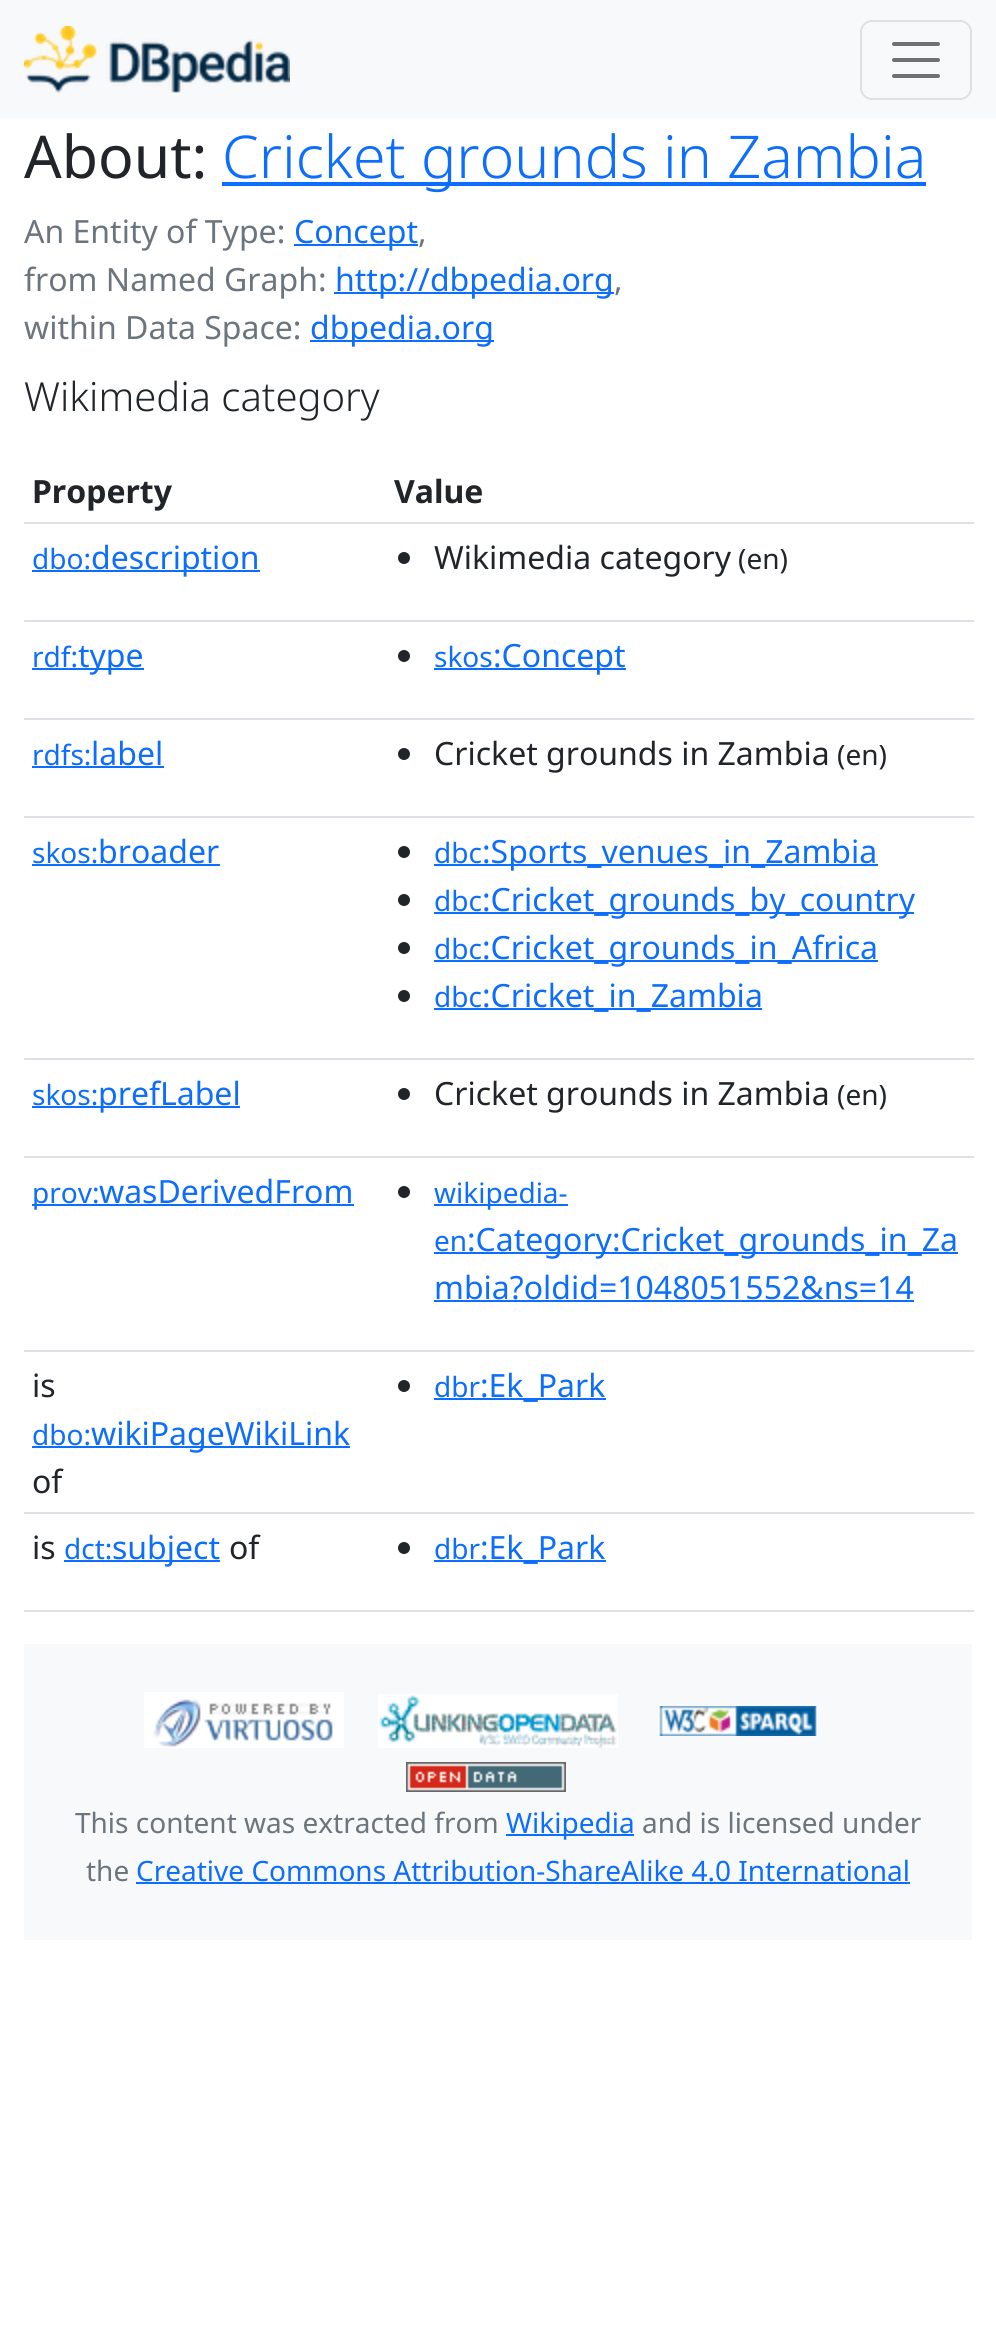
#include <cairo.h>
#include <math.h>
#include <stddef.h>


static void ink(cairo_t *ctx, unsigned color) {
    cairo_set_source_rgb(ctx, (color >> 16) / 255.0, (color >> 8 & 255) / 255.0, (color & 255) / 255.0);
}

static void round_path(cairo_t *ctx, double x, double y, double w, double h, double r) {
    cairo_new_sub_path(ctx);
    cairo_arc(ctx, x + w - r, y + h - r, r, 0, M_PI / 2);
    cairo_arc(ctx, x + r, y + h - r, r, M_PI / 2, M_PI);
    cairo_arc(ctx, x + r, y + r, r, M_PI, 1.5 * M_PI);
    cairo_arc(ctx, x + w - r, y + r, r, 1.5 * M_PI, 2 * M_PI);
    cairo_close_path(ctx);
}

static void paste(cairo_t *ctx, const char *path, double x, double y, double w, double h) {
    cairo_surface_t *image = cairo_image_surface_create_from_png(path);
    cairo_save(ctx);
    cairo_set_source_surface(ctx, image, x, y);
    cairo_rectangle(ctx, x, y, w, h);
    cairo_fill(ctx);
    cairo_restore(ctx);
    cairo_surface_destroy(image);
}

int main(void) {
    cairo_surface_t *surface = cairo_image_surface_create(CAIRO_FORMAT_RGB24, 996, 2334);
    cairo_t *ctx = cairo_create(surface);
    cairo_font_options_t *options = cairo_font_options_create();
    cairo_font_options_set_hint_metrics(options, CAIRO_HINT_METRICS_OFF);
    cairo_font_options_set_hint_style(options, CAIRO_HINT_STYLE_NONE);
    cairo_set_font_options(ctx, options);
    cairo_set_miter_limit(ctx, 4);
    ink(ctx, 0xFFFFFF);
    cairo_paint(ctx);
    ink(ctx, 0xF8F9FA);
    cairo_rectangle(ctx, 0, 0, 996, 118);
    cairo_fill(ctx);
    paste(ctx, "media/1.png", 24, 26, 266, 67);
    round_path(ctx, 861, 21, 110, 78, 11);
    ink(ctx, 0xDFE0E1);
    cairo_stroke(ctx);
    cairo_new_path(ctx);
    cairo_move_to(ctx, 894, 44);
    cairo_line_to(ctx, 938, 44);
    cairo_move_to(ctx, 894, 60);
    cairo_line_to(ctx, 938, 60);
    cairo_move_to(ctx, 894, 76);
    cairo_line_to(ctx, 938, 76);
    ink(ctx, 0x707071);
    cairo_set_line_width(ctx, 4);
    cairo_set_line_cap(ctx, CAIRO_LINE_CAP_ROUND);
    cairo_stroke(ctx);
    cairo_select_font_face(ctx, "Noto Sans", CAIRO_FONT_SLANT_NORMAL, CAIRO_FONT_WEIGHT_NORMAL);
    cairo_set_font_size(ctx, 59);
    ink(ctx, 0x212529);
    cairo_move_to(ctx, 24, 178);
    cairo_show_text(ctx, "About:");
    ink(ctx, 0x0D6EFD);
    cairo_rectangle(ctx, 222, 182, 704, 4);
    cairo_fill(ctx);
    cairo_select_font_face(ctx, "Noto Sans Light", CAIRO_FONT_SLANT_NORMAL, CAIRO_FONT_WEIGHT_NORMAL);
    cairo_move_to(ctx, 222, 178);
    cairo_show_text(ctx, "Cricket grounds in Zambia");
    cairo_select_font_face(ctx, "Noto Sans", CAIRO_FONT_SLANT_NORMAL, CAIRO_FONT_WEIGHT_NORMAL);
    cairo_set_font_size(ctx, 32);
    ink(ctx, 0x6C757D);
    cairo_move_to(ctx, 24, 243);
    cairo_show_text(ctx, "An Entity of Type:");
    ink(ctx, 0x0D6EFD);
    cairo_rectangle(ctx, 294, 244, 124, 2);
    cairo_fill(ctx);
    cairo_move_to(ctx, 294, 243);
    cairo_show_text(ctx, "Concept");
    ink(ctx, 0x6C757D);
    cairo_move_to(ctx, 418, 243);
    cairo_show_text(ctx, ",");
    cairo_move_to(ctx, 24, 291);
    cairo_show_text(ctx, "from Named Graph:");
    ink(ctx, 0x0D6EFD);
    cairo_rectangle(ctx, 334, 292, 280, 2);
    cairo_fill(ctx);
    cairo_move_to(ctx, 335, 291);
    cairo_show_text(ctx, "http://dbpedia.org");
    ink(ctx, 0x6C757D);
    cairo_move_to(ctx, 614, 291);
    cairo_show_text(ctx, ",");
    cairo_move_to(ctx, 24, 339);
    cairo_show_text(ctx, "within Data Space:");
    ink(ctx, 0x0D6EFD);
    cairo_rectangle(ctx, 310, 340, 184, 2);
    cairo_fill(ctx);
    cairo_move_to(ctx, 310, 339);
    cairo_show_text(ctx, "dbpedia.org");
    cairo_select_font_face(ctx, "Noto Sans Light", CAIRO_FONT_SLANT_NORMAL, CAIRO_FONT_WEIGHT_NORMAL);
    cairo_set_font_size(ctx, 40);
    ink(ctx, 0x212529);
    cairo_move_to(ctx, 24, 411);
    cairo_show_text(ctx, "Wikimedia category");
    cairo_select_font_face(ctx, "Noto Sans", CAIRO_FONT_SLANT_NORMAL, CAIRO_FONT_WEIGHT_BOLD);
    cairo_set_font_size(ctx, 32);
    cairo_move_to(ctx, 32, 503);
    cairo_show_text(ctx, "Property");
    ink(ctx, 0xDEE2E6);
    cairo_rectangle(ctx, 24, 522, 950, 2);
    cairo_fill(ctx);
    ink(ctx, 0x212529);
    cairo_move_to(ctx, 394, 503);
    cairo_show_text(ctx, "Value");
    cairo_select_font_face(ctx, "Noto Sans", CAIRO_FONT_SLANT_NORMAL, CAIRO_FONT_WEIGHT_NORMAL);
    cairo_set_font_size(ctx, 28);
    ink(ctx, 0x0D6EFD);
    cairo_move_to(ctx, 32, 569);
    cairo_show_text(ctx, "dbo:");
    cairo_rectangle(ctx, 32, 570, 228, 2);
    cairo_fill(ctx);
    cairo_set_font_size(ctx, 32);
    cairo_move_to(ctx, 91, 569);
    cairo_show_text(ctx, "description");
    ink(ctx, 0xDEE2E6);
    cairo_rectangle(ctx, 24, 620, 950, 2);
    cairo_fill(ctx);
    ink(ctx, 0x212529);
    cairo_arc(ctx, 404, 558, 6, 0, 2 * M_PI);
    cairo_fill(ctx);
    cairo_move_to(ctx, 434, 569);
    cairo_show_text(ctx, "Wikimedia category");
    cairo_set_font_size(ctx, 28);
    cairo_move_to(ctx, 738, 569);
    cairo_show_text(ctx, "(en)");
    ink(ctx, 0x0D6EFD);
    cairo_move_to(ctx, 32, 667);
    cairo_show_text(ctx, "rdf:");
    cairo_rectangle(ctx, 32, 668, 112, 2);
    cairo_fill(ctx);
    cairo_set_font_size(ctx, 32);
    cairo_move_to(ctx, 78, 667);
    cairo_show_text(ctx, "type");
    ink(ctx, 0xDEE2E6);
    cairo_rectangle(ctx, 24, 718, 950, 2);
    cairo_fill(ctx);
    ink(ctx, 0x212529);
    cairo_arc(ctx, 404, 656, 6, 0, 2 * M_PI);
    cairo_fill(ctx);
    cairo_set_font_size(ctx, 28);
    ink(ctx, 0x0D6EFD);
    cairo_move_to(ctx, 434, 667);
    cairo_show_text(ctx, "skos");
    cairo_rectangle(ctx, 434, 668, 192, 2);
    cairo_fill(ctx);
    cairo_set_font_size(ctx, 32);
    cairo_move_to(ctx, 493, 667);
    cairo_show_text(ctx, ":Concept");
    cairo_set_font_size(ctx, 28);
    cairo_move_to(ctx, 32, 765);
    cairo_show_text(ctx, "rdfs:");
    cairo_rectangle(ctx, 32, 766, 132, 2);
    cairo_fill(ctx);
    cairo_set_font_size(ctx, 32);
    cairo_move_to(ctx, 91, 765);
    cairo_show_text(ctx, "label");
    ink(ctx, 0xDEE2E6);
    cairo_rectangle(ctx, 24, 816, 950, 2);
    cairo_fill(ctx);
    ink(ctx, 0x212529);
    cairo_arc(ctx, 404, 754, 6, 0, 2 * M_PI);
    cairo_fill(ctx);
    cairo_move_to(ctx, 434, 765);
    cairo_show_text(ctx, "Cricket grounds in Zambia");
    cairo_set_font_size(ctx, 28);
    cairo_move_to(ctx, 837, 765);
    cairo_show_text(ctx, "(en)");
    ink(ctx, 0x0D6EFD);
    cairo_move_to(ctx, 32, 863);
    cairo_show_text(ctx, "skos:");
    cairo_rectangle(ctx, 32, 864, 188, 2);
    cairo_fill(ctx);
    cairo_set_font_size(ctx, 32);
    cairo_move_to(ctx, 98, 863);
    cairo_show_text(ctx, "broader");
    ink(ctx, 0xDEE2E6);
    cairo_rectangle(ctx, 24, 1058, 950, 2);
    cairo_fill(ctx);
    ink(ctx, 0x212529);
    cairo_arc(ctx, 404, 852, 6, 0, 2 * M_PI);
    cairo_fill(ctx);
    cairo_set_font_size(ctx, 28);
    ink(ctx, 0x0D6EFD);
    cairo_move_to(ctx, 434, 863);
    cairo_show_text(ctx, "dbc");
    cairo_rectangle(ctx, 434, 864, 444, 2);
    cairo_fill(ctx);
    cairo_set_font_size(ctx, 32);
    cairo_move_to(ctx, 482, 863);
    cairo_show_text(ctx, ":Sports_venues_in_Zambia");
    ink(ctx, 0x212529);
    cairo_new_path(ctx);
    cairo_arc(ctx, 404, 900, 6, 0, 2 * M_PI);
    cairo_fill(ctx);
    cairo_set_font_size(ctx, 28);
    ink(ctx, 0x0D6EFD);
    cairo_move_to(ctx, 434, 911);
    cairo_show_text(ctx, "dbc");
    cairo_rectangle(ctx, 434, 912, 480, 2);
    cairo_fill(ctx);
    cairo_set_font_size(ctx, 32);
    cairo_move_to(ctx, 482, 911);
    cairo_show_text(ctx, ":Cricket_grounds_by_country");
    ink(ctx, 0x212529);
    cairo_new_path(ctx);
    cairo_arc(ctx, 404, 948, 6, 0, 2 * M_PI);
    cairo_fill(ctx);
    cairo_set_font_size(ctx, 28);
    ink(ctx, 0x0D6EFD);
    cairo_move_to(ctx, 434, 959);
    cairo_show_text(ctx, "dbc");
    cairo_rectangle(ctx, 434, 960, 444, 2);
    cairo_fill(ctx);
    cairo_set_font_size(ctx, 32);
    cairo_move_to(ctx, 482, 959);
    cairo_show_text(ctx, ":Cricket_grounds_in_Africa");
    ink(ctx, 0x212529);
    cairo_new_path(ctx);
    cairo_arc(ctx, 404, 996, 6, 0, 2 * M_PI);
    cairo_fill(ctx);
    cairo_set_font_size(ctx, 28);
    ink(ctx, 0x0D6EFD);
    cairo_move_to(ctx, 434, 1007);
    cairo_show_text(ctx, "dbc");
    cairo_rectangle(ctx, 434, 1008, 328, 2);
    cairo_fill(ctx);
    cairo_set_font_size(ctx, 32);
    cairo_move_to(ctx, 482, 1007);
    cairo_show_text(ctx, ":Cricket_in_Zambia");
    cairo_set_font_size(ctx, 28);
    cairo_move_to(ctx, 32, 1105);
    cairo_show_text(ctx, "skos:");
    cairo_rectangle(ctx, 32, 1106, 208, 2);
    cairo_fill(ctx);
    cairo_set_font_size(ctx, 32);
    cairo_move_to(ctx, 98, 1105);
    cairo_show_text(ctx, "prefLabel");
    ink(ctx, 0xDEE2E6);
    cairo_rectangle(ctx, 24, 1156, 950, 2);
    cairo_fill(ctx);
    ink(ctx, 0x212529);
    cairo_arc(ctx, 404, 1094, 6, 0, 2 * M_PI);
    cairo_fill(ctx);
    cairo_move_to(ctx, 434, 1105);
    cairo_show_text(ctx, "Cricket grounds in Zambia");
    cairo_set_font_size(ctx, 28);
    cairo_move_to(ctx, 837, 1105);
    cairo_show_text(ctx, "(en)");
    ink(ctx, 0x0D6EFD);
    cairo_rectangle(ctx, 32, 1204, 322, 2);
    cairo_fill(ctx);
    cairo_move_to(ctx, 32, 1203);
    cairo_show_text(ctx, "prov:");
    cairo_set_font_size(ctx, 32);
    cairo_move_to(ctx, 99, 1203);
    cairo_show_text(ctx, "wasDerivedFrom");
    ink(ctx, 0xDEE2E6);
    cairo_rectangle(ctx, 24, 1350, 950, 2);
    cairo_fill(ctx);
    ink(ctx, 0x212529);
    cairo_arc(ctx, 404, 1192, 6, 0, 2 * M_PI);
    cairo_fill(ctx);
    ink(ctx, 0x0D6EFD);
    cairo_rectangle(ctx, 434, 1204, 134, 2);
    cairo_fill(ctx);
    cairo_set_font_size(ctx, 28);
    cairo_move_to(ctx, 434, 1203);
    cairo_show_text(ctx, "wikipedia-");
    cairo_move_to(ctx, 434, 1251);
    cairo_show_text(ctx, "en");
    cairo_rectangle(ctx, 434, 1252, 524, 2);
    cairo_fill(ctx);
    cairo_set_font_size(ctx, 32);
    cairo_move_to(ctx, 467, 1251);
    cairo_show_text(ctx, ":Category:Cricket_grounds_in_Za");
    cairo_move_to(ctx, 434, 1299);
    cairo_show_text(ctx, "mbia?oldid=1048051552&ns=14");
    cairo_rectangle(ctx, 434, 1300, 480, 2);
    cairo_fill(ctx);
    ink(ctx, 0x212529);
    cairo_move_to(ctx, 32, 1397);
    cairo_show_text(ctx, "is");
    cairo_set_font_size(ctx, 28);
    ink(ctx, 0x0D6EFD);
    cairo_move_to(ctx, 32, 1445);
    cairo_show_text(ctx, "dbo:");
    cairo_rectangle(ctx, 32, 1446, 318, 2);
    cairo_fill(ctx);
    cairo_set_font_size(ctx, 32);
    cairo_move_to(ctx, 91, 1445);
    cairo_show_text(ctx, "wikiPageWikiLink");
    ink(ctx, 0x212529);
    cairo_move_to(ctx, 32, 1493);
    cairo_show_text(ctx, "of");
    ink(ctx, 0xDEE2E6);
    cairo_rectangle(ctx, 24, 1512, 950, 2);
    cairo_fill(ctx);
    ink(ctx, 0x212529);
    cairo_arc(ctx, 404, 1386, 6, 0, 2 * M_PI);
    cairo_fill(ctx);
    cairo_set_font_size(ctx, 28);
    ink(ctx, 0x0D6EFD);
    cairo_move_to(ctx, 434, 1397);
    cairo_show_text(ctx, "dbr");
    cairo_rectangle(ctx, 434, 1398, 172, 2);
    cairo_fill(ctx);
    cairo_set_font_size(ctx, 32);
    cairo_move_to(ctx, 480, 1397);
    cairo_show_text(ctx, ":Ek_Park");
    ink(ctx, 0x212529);
    cairo_move_to(ctx, 32, 1559);
    cairo_show_text(ctx, "is");
    cairo_set_font_size(ctx, 28);
    ink(ctx, 0x0D6EFD);
    cairo_move_to(ctx, 64, 1559);
    cairo_show_text(ctx, "dct:");
    cairo_rectangle(ctx, 64, 1560, 156, 2);
    cairo_fill(ctx);
    cairo_set_font_size(ctx, 32);
    cairo_move_to(ctx, 112, 1559);
    cairo_show_text(ctx, "subject");
    ink(ctx, 0x212529);
    cairo_move_to(ctx, 229, 1559);
    cairo_show_text(ctx, "of");
    ink(ctx, 0xDEE2E6);
    cairo_rectangle(ctx, 24, 1610, 950, 2);
    cairo_fill(ctx);
    ink(ctx, 0x212529);
    cairo_arc(ctx, 404, 1548, 6, 0, 2 * M_PI);
    cairo_fill(ctx);
    cairo_set_font_size(ctx, 28);
    ink(ctx, 0x0D6EFD);
    cairo_move_to(ctx, 434, 1559);
    cairo_show_text(ctx, "dbr");
    cairo_rectangle(ctx, 434, 1560, 172, 2);
    cairo_fill(ctx);
    cairo_set_font_size(ctx, 32);
    cairo_move_to(ctx, 480, 1559);
    cairo_show_text(ctx, ":Ek_Park");
    ink(ctx, 0xF8F9FA);
    cairo_rectangle(ctx, 24, 1644, 948, 296);
    cairo_fill(ctx);
    paste(ctx, "media/2.png", 144, 1692, 200, 56);
    paste(ctx, "media/3.png", 378, 1694, 240, 54);
    paste(ctx, "media/4.png", 658, 1706, 160, 30);
    paste(ctx, "media/5.png", 406, 1762, 160, 30);
    cairo_set_font_size(ctx, 28);
    ink(ctx, 0x6C757D);
    cairo_move_to(ctx, 75, 1833);
    cairo_show_text(ctx, "This content was extracted from");
    ink(ctx, 0x0D6EFD);
    cairo_rectangle(ctx, 506, 1834, 128, 2);
    cairo_fill(ctx);
    cairo_move_to(ctx, 506, 1833);
    cairo_show_text(ctx, "Wikipedia");
    ink(ctx, 0x6C757D);
    cairo_move_to(ctx, 642, 1833);
    cairo_show_text(ctx, "and is licensed under");
    cairo_move_to(ctx, 86, 1881);
    cairo_show_text(ctx, "the");
    ink(ctx, 0x0D6EFD);
    cairo_move_to(ctx, 136, 1881);
    cairo_show_text(ctx, "Creative Commons Attribution-ShareAlike 4.0 International");
    cairo_rectangle(ctx, 136, 1882, 774, 2);
    cairo_fill(ctx);
    cairo_surface_write_to_png(surface, "image.png");
    cairo_font_options_destroy(options);
    cairo_destroy(ctx);
    cairo_surface_destroy(surface);
    return 0;
}
